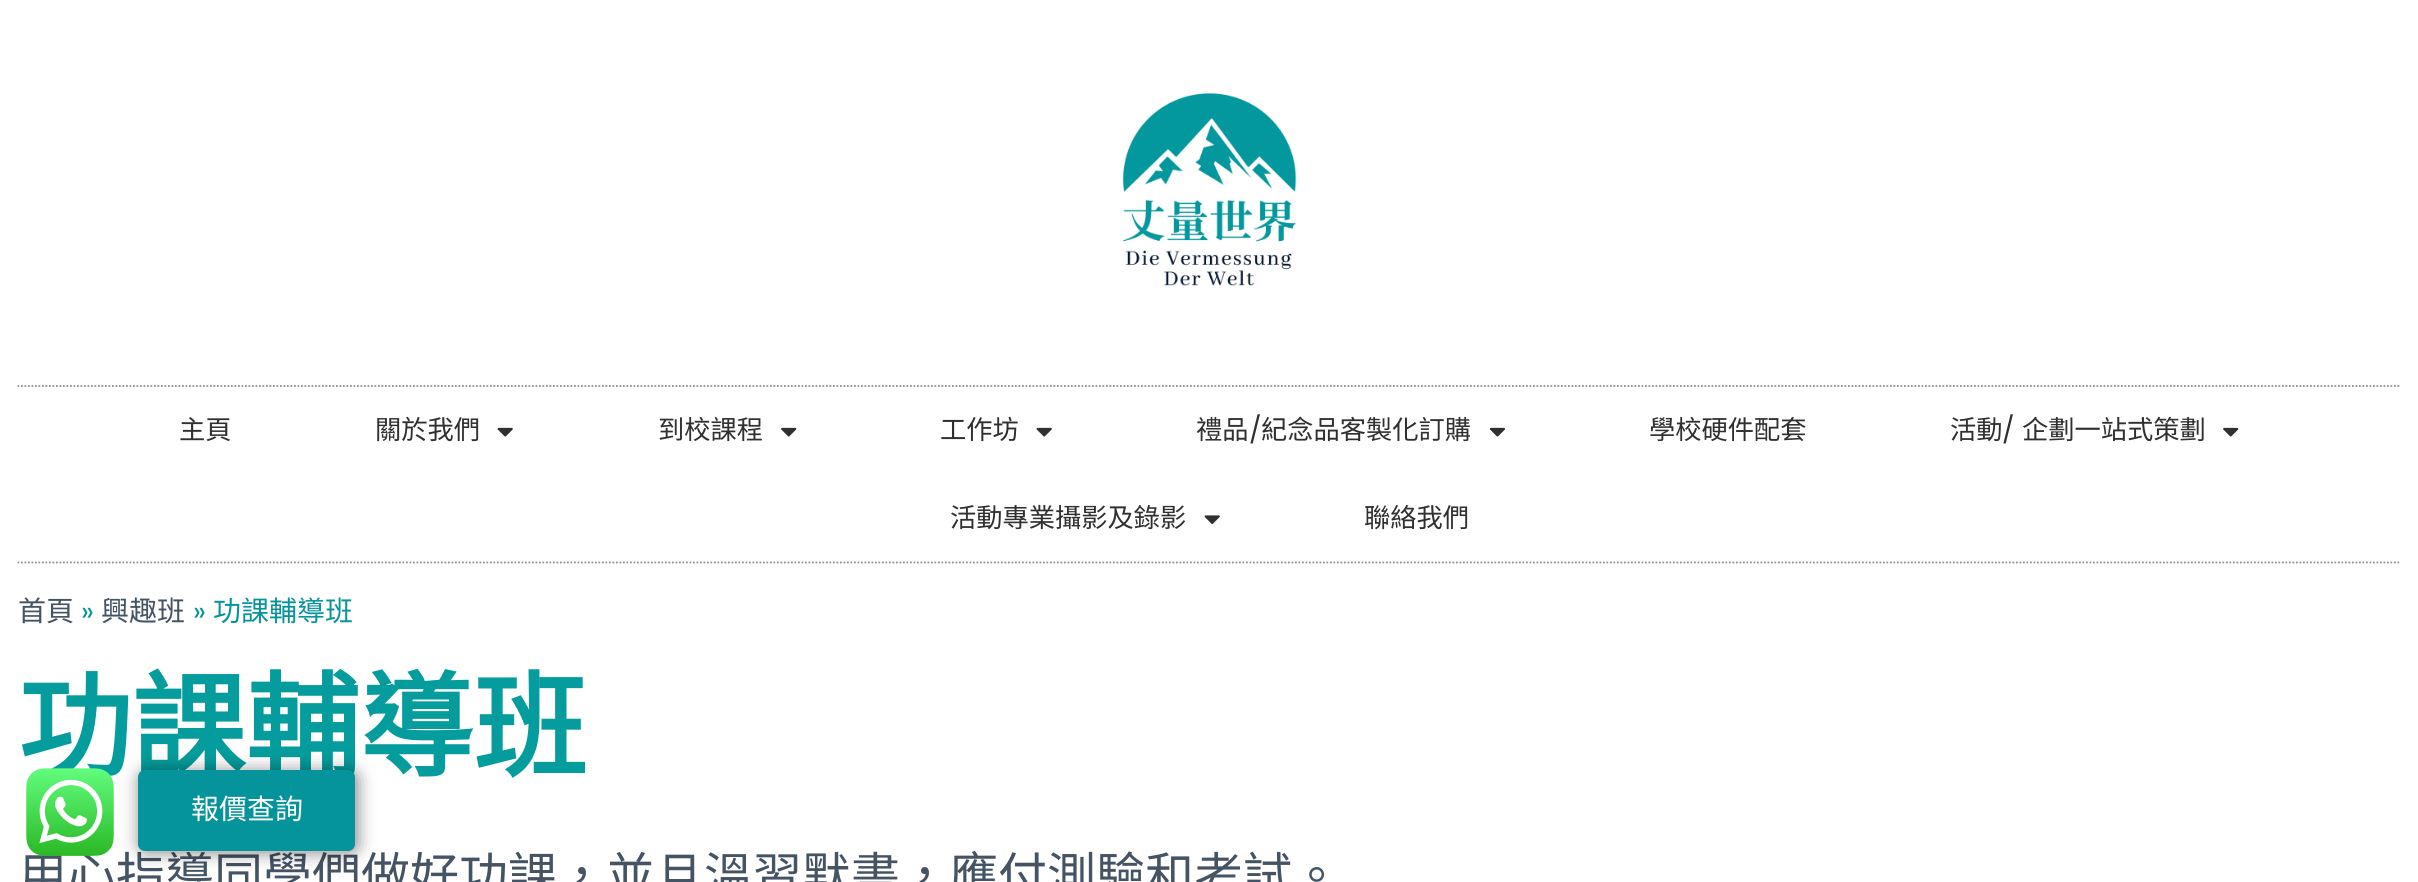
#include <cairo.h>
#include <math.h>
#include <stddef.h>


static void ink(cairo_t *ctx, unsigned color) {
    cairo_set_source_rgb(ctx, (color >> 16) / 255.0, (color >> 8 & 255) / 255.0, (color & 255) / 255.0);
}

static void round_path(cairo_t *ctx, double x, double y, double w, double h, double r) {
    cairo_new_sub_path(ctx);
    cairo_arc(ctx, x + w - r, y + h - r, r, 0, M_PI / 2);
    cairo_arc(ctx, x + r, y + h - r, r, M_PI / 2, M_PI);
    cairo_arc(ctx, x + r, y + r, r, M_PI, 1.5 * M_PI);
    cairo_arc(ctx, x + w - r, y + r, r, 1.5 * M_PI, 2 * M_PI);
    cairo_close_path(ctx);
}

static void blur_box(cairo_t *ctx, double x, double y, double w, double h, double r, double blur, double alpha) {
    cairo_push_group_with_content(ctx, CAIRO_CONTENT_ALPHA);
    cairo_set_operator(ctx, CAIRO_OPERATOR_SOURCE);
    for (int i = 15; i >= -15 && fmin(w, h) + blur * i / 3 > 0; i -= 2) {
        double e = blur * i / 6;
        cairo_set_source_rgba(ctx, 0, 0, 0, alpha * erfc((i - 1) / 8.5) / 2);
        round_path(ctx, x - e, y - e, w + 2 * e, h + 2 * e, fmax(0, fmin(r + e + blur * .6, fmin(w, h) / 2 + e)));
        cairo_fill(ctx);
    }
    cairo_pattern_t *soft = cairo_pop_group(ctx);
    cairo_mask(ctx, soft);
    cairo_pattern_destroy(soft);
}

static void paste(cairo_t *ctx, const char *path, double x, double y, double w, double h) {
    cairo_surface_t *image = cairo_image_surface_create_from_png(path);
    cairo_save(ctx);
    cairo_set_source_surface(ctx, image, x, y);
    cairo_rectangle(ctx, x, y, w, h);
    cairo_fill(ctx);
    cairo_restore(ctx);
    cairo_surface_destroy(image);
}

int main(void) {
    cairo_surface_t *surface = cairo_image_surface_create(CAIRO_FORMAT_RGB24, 2418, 882);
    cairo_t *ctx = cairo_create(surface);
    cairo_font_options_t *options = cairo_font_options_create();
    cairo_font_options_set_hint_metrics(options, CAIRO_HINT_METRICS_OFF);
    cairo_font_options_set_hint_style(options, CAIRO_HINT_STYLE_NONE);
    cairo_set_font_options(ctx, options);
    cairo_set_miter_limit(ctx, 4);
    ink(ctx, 0xFFFFFF);
    cairo_paint(ctx);
    paste(ctx, "media/1.png", 1123, 93, 174, 193);
    cairo_new_path(ctx);
    cairo_move_to(ctx, 17.5, 386);
    cairo_line_to(ctx, 2401, 386);
    ink(ctx, 0x8E8E8E);
    cairo_set_line_width(ctx, 1.8);
    cairo_set_dash(ctx, (double[]){1.75, 1.75}, 2, 0);
    cairo_stroke(ctx);
    cairo_new_path(ctx);
    cairo_move_to(ctx, 17.5, 562.5);
    cairo_line_to(ctx, 2401, 562.5);
    cairo_stroke(ctx);
    cairo_select_font_face(ctx, "Noto Sans CJK HK", CAIRO_FONT_SLANT_NORMAL, CAIRO_FONT_WEIGHT_NORMAL);
    cairo_set_font_size(ctx, 26.25);
    ink(ctx, 0x303030);
    cairo_move_to(ctx, 179, 439);
    cairo_show_text(ctx, "主頁");
    cairo_move_to(ctx, 375, 439);
    cairo_show_text(ctx, "關於我們");
    paste(ctx, "media/2.png", 497, 427, 16, 10);
    cairo_move_to(ctx, 658, 439);
    cairo_show_text(ctx, "到校課程");
    paste(ctx, "media/3.png", 781, 427, 16, 10);
    cairo_move_to(ctx, 940, 439);
    cairo_show_text(ctx, "工作坊");
    paste(ctx, "media/2.png", 1036, 427, 16, 10);
    cairo_move_to(ctx, 1196, 439);
    cairo_show_text(ctx, "禮品");
    cairo_select_font_face(ctx, "Poppins", CAIRO_FONT_SLANT_NORMAL, CAIRO_FONT_WEIGHT_NORMAL);
    cairo_move_to(ctx, 1249, 439);
    cairo_show_text(ctx, "/");
    cairo_select_font_face(ctx, "Noto Sans CJK HK", CAIRO_FONT_SLANT_NORMAL, CAIRO_FONT_WEIGHT_NORMAL);
    cairo_move_to(ctx, 1261, 439);
    cairo_show_text(ctx, "紀念品客製化訂購");
    paste(ctx, "media/4.png", 1489, 427, 16, 10);
    cairo_move_to(ctx, 1649, 439);
    cairo_show_text(ctx, "學校硬件配套");
    cairo_move_to(ctx, 1950, 439);
    cairo_show_text(ctx, "活動");
    cairo_select_font_face(ctx, "Poppins", CAIRO_FONT_SLANT_NORMAL, CAIRO_FONT_WEIGHT_NORMAL);
    cairo_move_to(ctx, 2002, 439);
    cairo_show_text(ctx, "/");
    cairo_select_font_face(ctx, "Noto Sans CJK HK", CAIRO_FONT_SLANT_NORMAL, CAIRO_FONT_WEIGHT_NORMAL);
    cairo_move_to(ctx, 2022, 439);
    cairo_show_text(ctx, "企劃一站式策劃");
    paste(ctx, "media/3.png", 2223, 427, 16, 10);
    cairo_move_to(ctx, 950, 527);
    cairo_show_text(ctx, "活動專業攝影及錄影");
    paste(ctx, "media/5.png", 1204, 515, 16, 9);
    cairo_move_to(ctx, 1364, 527);
    cairo_show_text(ctx, "聯絡我們");
    cairo_set_font_size(ctx, 28);
    ink(ctx, 0x445464);
    cairo_move_to(ctx, 18, 621);
    cairo_show_text(ctx, "首頁");
    cairo_select_font_face(ctx, "Poppins", CAIRO_FONT_SLANT_NORMAL, CAIRO_FONT_WEIGHT_NORMAL);
    ink(ctx, 0x05949C);
    cairo_move_to(ctx, 81, 621);
    cairo_show_text(ctx, "»");
    cairo_select_font_face(ctx, "Noto Sans CJK HK", CAIRO_FONT_SLANT_NORMAL, CAIRO_FONT_WEIGHT_NORMAL);
    ink(ctx, 0x445464);
    cairo_move_to(ctx, 101, 621);
    cairo_show_text(ctx, "興趣班");
    cairo_select_font_face(ctx, "Poppins", CAIRO_FONT_SLANT_NORMAL, CAIRO_FONT_WEIGHT_NORMAL);
    ink(ctx, 0x05949C);
    cairo_move_to(ctx, 193, 621);
    cairo_show_text(ctx, "»");
    cairo_select_font_face(ctx, "Noto Sans CJK HK", CAIRO_FONT_SLANT_NORMAL, CAIRO_FONT_WEIGHT_NORMAL);
    cairo_move_to(ctx, 213, 621);
    cairo_show_text(ctx, "功課輔導班");
    cairo_select_font_face(ctx, "Noto Sans CJK HK", CAIRO_FONT_SLANT_NORMAL, CAIRO_FONT_WEIGHT_BOLD);
    cairo_set_font_size(ctx, 113.75);
    ink(ctx, 0x049C9C);
    cairo_move_to(ctx, 18, 768);
    cairo_show_text(ctx, "功課輔導班");
    cairo_select_font_face(ctx, "Noto Sans CJK HK", CAIRO_FONT_SLANT_NORMAL, CAIRO_FONT_WEIGHT_NORMAL);
    cairo_set_font_size(ctx, 49);
    ink(ctx, 0x445464);
    cairo_move_to(ctx, 18, 893);
    cairo_show_text(ctx, "用心指導同學們做好功課，並且溫習默書，應付測驗和考試。");
    ink(ctx, 0x000000);
    blur_box(ctx, 140, 772, 217, 80, 7, 9, 0.5);
    paste(ctx, "media/6.png", 26, 768, 88, 88);
    ink(ctx, 0x05949C);
    round_path(ctx, 138, 770, 217, 81, 7);
    cairo_fill(ctx);
    cairo_set_font_size(ctx, 28);
    ink(ctx, 0xFFFFFF);
    cairo_move_to(ctx, 191, 819);
    cairo_show_text(ctx, "報價查詢");
    cairo_surface_write_to_png(surface, "image.png");
    cairo_font_options_destroy(options);
    cairo_destroy(ctx);
    cairo_surface_destroy(surface);
    return 0;
}
